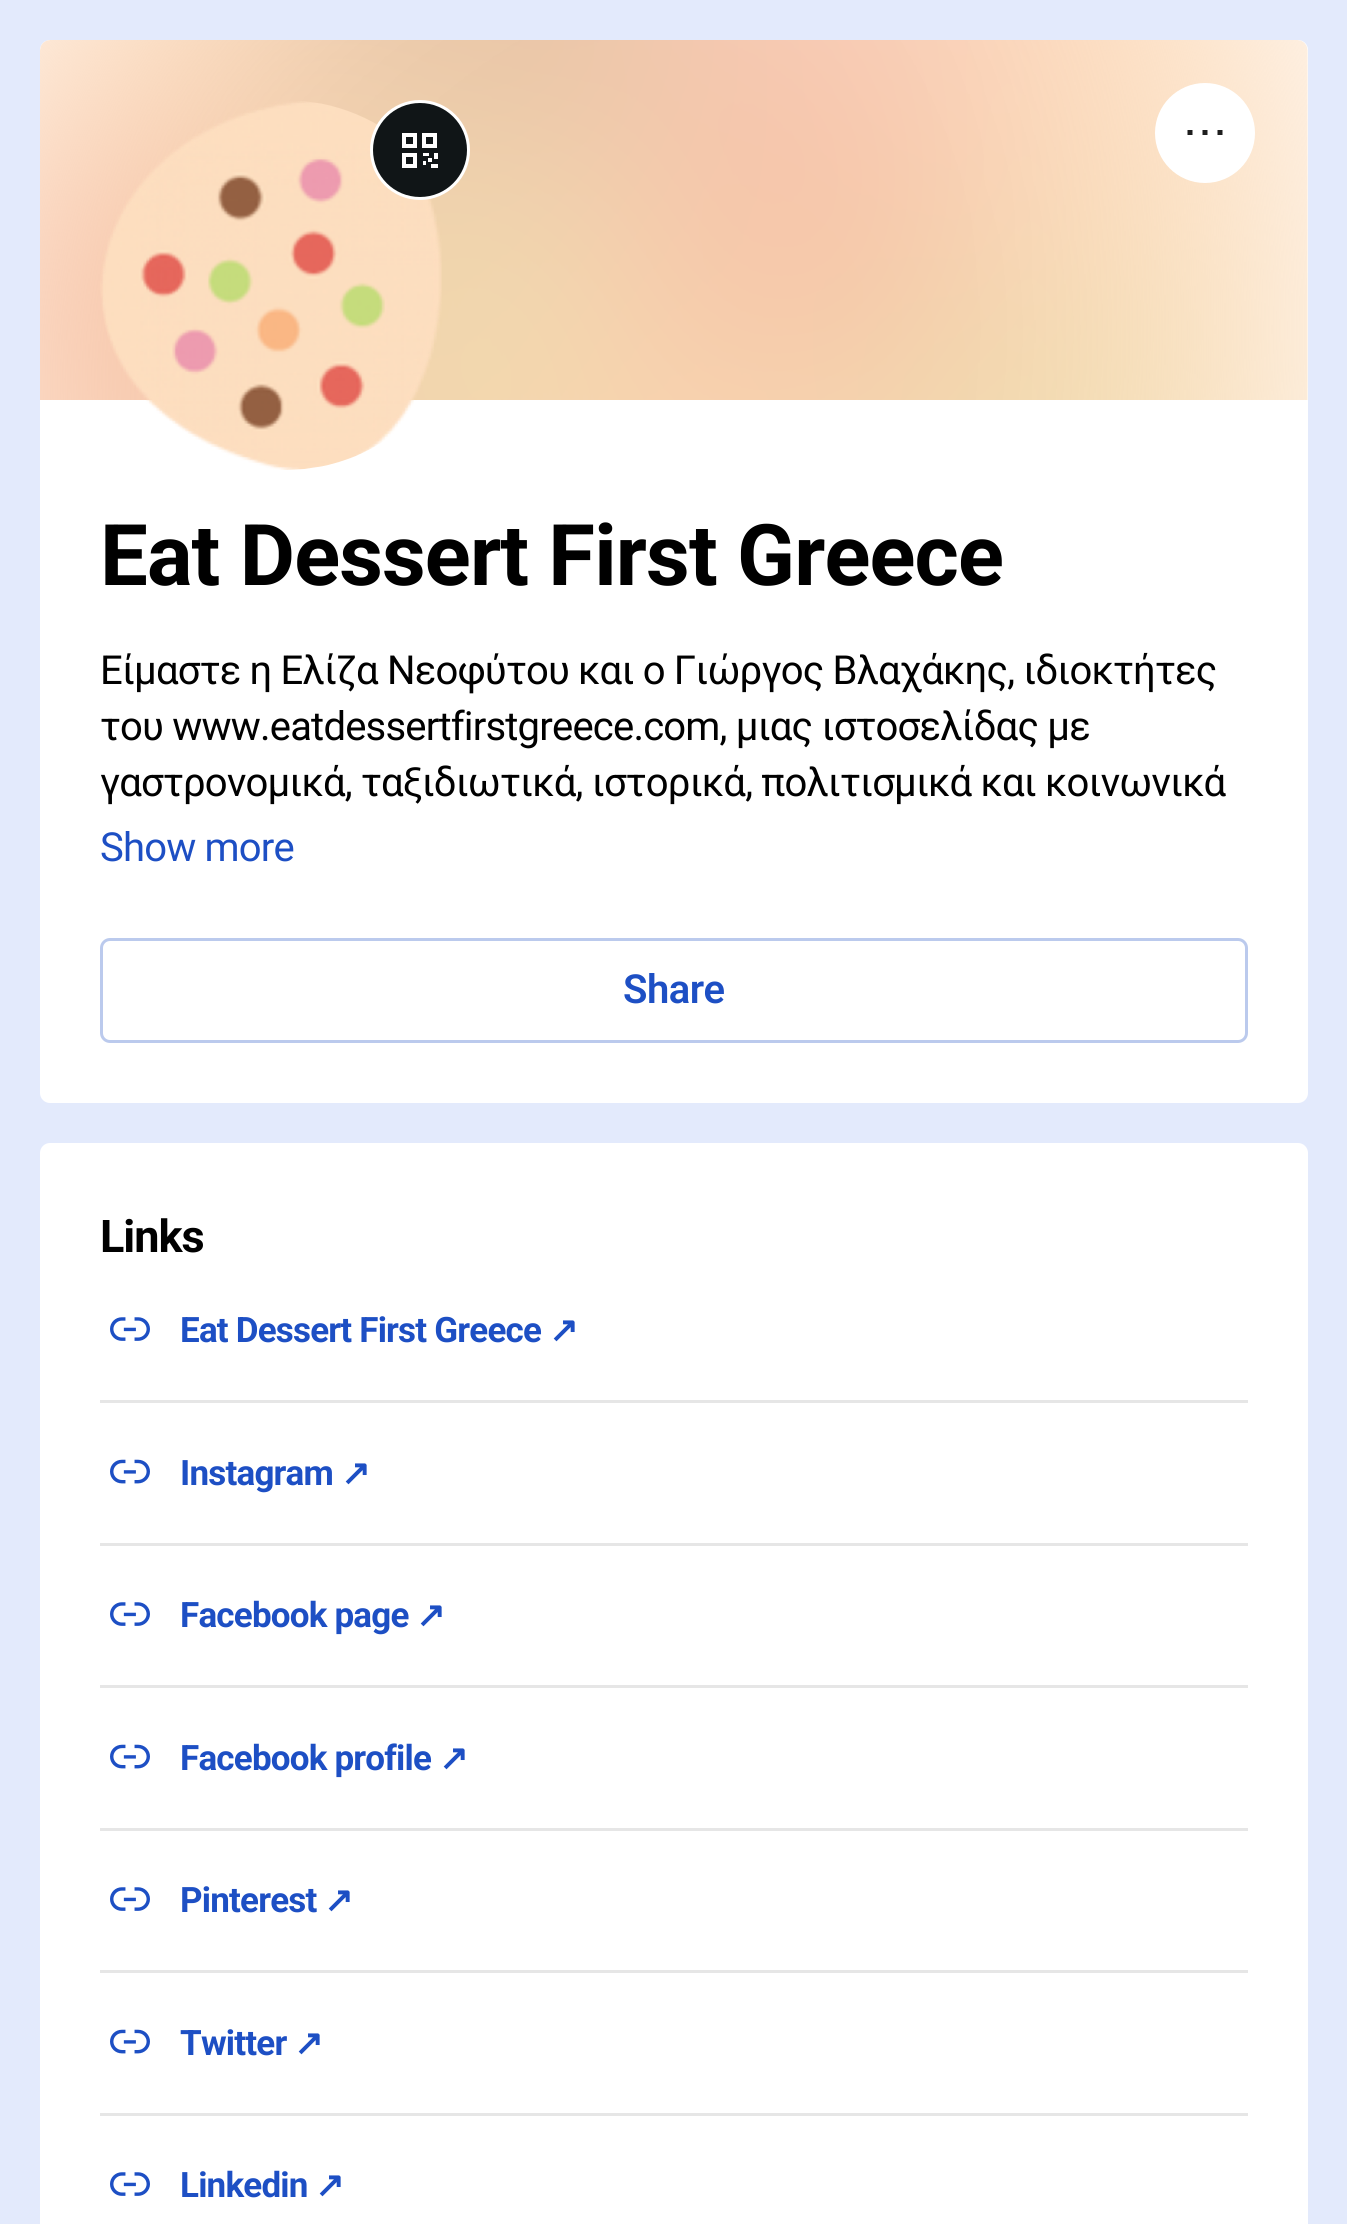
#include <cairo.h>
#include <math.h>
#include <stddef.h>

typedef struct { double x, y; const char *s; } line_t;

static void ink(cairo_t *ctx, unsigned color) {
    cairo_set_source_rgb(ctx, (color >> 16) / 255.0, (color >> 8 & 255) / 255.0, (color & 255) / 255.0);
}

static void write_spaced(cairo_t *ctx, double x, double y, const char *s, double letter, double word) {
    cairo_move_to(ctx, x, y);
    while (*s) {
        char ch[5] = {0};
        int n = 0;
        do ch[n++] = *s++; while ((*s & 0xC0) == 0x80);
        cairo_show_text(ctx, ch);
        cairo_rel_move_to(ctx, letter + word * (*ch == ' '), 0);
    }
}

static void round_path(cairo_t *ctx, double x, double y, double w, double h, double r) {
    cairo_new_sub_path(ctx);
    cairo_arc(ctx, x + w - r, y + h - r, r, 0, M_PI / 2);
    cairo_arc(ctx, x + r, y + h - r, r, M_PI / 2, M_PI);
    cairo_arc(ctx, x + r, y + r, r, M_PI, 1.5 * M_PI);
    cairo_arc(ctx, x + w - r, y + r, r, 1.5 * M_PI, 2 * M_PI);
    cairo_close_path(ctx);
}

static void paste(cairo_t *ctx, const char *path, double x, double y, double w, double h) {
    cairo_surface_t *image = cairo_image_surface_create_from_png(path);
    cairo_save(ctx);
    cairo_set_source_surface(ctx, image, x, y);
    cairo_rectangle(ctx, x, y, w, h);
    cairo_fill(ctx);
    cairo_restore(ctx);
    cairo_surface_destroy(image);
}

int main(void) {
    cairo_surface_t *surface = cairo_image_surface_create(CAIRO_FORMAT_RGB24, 1347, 2224);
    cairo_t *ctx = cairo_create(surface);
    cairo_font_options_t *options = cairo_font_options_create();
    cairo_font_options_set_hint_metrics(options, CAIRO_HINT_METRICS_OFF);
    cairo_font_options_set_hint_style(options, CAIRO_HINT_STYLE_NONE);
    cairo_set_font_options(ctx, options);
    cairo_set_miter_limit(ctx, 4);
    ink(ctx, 0xE3EAFC);
    cairo_paint(ctx);
    ink(ctx, 0xFFFFFF);
    round_path(ctx, 40, 40, 1268, 1063, 10);
    cairo_fill(ctx);
    paste(ctx, "media/1.png", 40, 40, 1268, 360);
    cairo_arc(ctx, 1205, 133, 50, 0, 2 * M_PI);
    cairo_fill(ctx);
    cairo_new_path(ctx);
    cairo_move_to(ctx, 1207.5, 132.5);
    cairo_line_to(ctx, 1202.5, 132.5);
    cairo_move_to(ctx, 1222.5, 132.5);
    cairo_line_to(ctx, 1217.5, 132.5);
    cairo_move_to(ctx, 1192.5, 132.5);
    cairo_line_to(ctx, 1187.5, 132.5);
    ink(ctx, 0x1E1E1E);
    cairo_set_line_width(ctx, 5);
    cairo_stroke(ctx);
    paste(ctx, "media/3.png", 100, 101, 342, 369);
    ink(ctx, 0x101517);
    cairo_arc(ctx, 420, 150, 48.5, 0, 2 * M_PI);
    cairo_fill_preserve(ctx);
    ink(ctx, 0xFFFFFF);
    cairo_set_line_width(ctx, 3);
    cairo_stroke(ctx);
    paste(ctx, "media/2.png", 402, 133, 36, 35);
    cairo_select_font_face(ctx, "Roboto", CAIRO_FONT_SLANT_NORMAL, CAIRO_FONT_WEIGHT_BOLD);
    cairo_set_font_size(ctx, 85);
    ink(ctx, 0x000000);
    write_spaced(ctx, 100, 585, "Eat Dessert First Greece", -0.85, 0);
    cairo_select_font_face(ctx, "Roboto", CAIRO_FONT_SLANT_NORMAL, CAIRO_FONT_WEIGHT_NORMAL);
    cairo_set_font_size(ctx, 40);
    {
        static const line_t items[] = {
            {100, 684, "Είμαστε η Ελίζα Νεοφύτου και ο Γιώργος Βλαχάκης, ιδιοκτήτες"},
            {100, 740, "του www.eatdessertfirstgreece.com, μιας ιστοσελίδας με"},
            {100, 796, "γαστρονομικά, ταξιδιωτικά, ιστορικά, πολιτισμικά και κοινωνικά"},
        };
        for (size_t i = 0; i < sizeof items / sizeof *items; i++) {
            write_spaced(ctx, items[i].x, items[i].y, items[i].s, -0.8, 0);
        }
    }
    ink(ctx, 0x1D4FC4);
    write_spaced(ctx, 100, 861, "Show more", -0.8, 0);
    round_path(ctx, 101.5, 939.5, 1145, 102, 8.5);
    ink(ctx, 0xBBCAED);
    cairo_stroke(ctx);
    cairo_select_font_face(ctx, "Roboto SemiBold", CAIRO_FONT_SLANT_NORMAL, CAIRO_FONT_WEIGHT_NORMAL);
    ink(ctx, 0x1D4FC4);
    write_spaced(ctx, 623, 1003, "Share", -0.5, 0);
    ink(ctx, 0xFFFFFF);
    round_path(ctx, 40, 1143, 1268, 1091, 10);
    cairo_fill(ctx);
    cairo_select_font_face(ctx, "Roboto", CAIRO_FONT_SLANT_NORMAL, CAIRO_FONT_WEIGHT_BOLD);
    cairo_set_font_size(ctx, 45);
    ink(ctx, 0x000000);
    write_spaced(ctx, 100, 1252, "Links", -1, 0);
    ink(ctx, 0xE6E6E6);
    cairo_rectangle(ctx, 100, 1400, 1148, 3);
    cairo_fill(ctx);
    paste(ctx, "media/4.png", 110, 1317, 40, 24);
    cairo_set_font_size(ctx, 35);
    ink(ctx, 0x1D4FC4);
    write_spaced(ctx, 180, 1342, "Eat Dessert First Greece", -0.8, 0);
    cairo_select_font_face(ctx, "DejaVu Sans", CAIRO_FONT_SLANT_NORMAL, CAIRO_FONT_WEIGHT_BOLD);
    write_spaced(ctx, 549, 1342, "↗", -0.8, 0);
    ink(ctx, 0xE6E6E6);
    cairo_rectangle(ctx, 100, 1543, 1148, 3);
    cairo_fill(ctx);
    paste(ctx, "media/5.png", 110, 1459, 40, 25);
    cairo_select_font_face(ctx, "Roboto", CAIRO_FONT_SLANT_NORMAL, CAIRO_FONT_WEIGHT_BOLD);
    ink(ctx, 0x1D4FC4);
    write_spaced(ctx, 180, 1485, "Instagram", -0.8, 0);
    cairo_select_font_face(ctx, "DejaVu Sans", CAIRO_FONT_SLANT_NORMAL, CAIRO_FONT_WEIGHT_BOLD);
    write_spaced(ctx, 341, 1485, "↗", -0.8, 0);
    ink(ctx, 0xE6E6E6);
    cairo_rectangle(ctx, 100, 1685, 1148, 3);
    cairo_fill(ctx);
    paste(ctx, "media/4.png", 110, 1602, 40, 24);
    cairo_select_font_face(ctx, "Roboto", CAIRO_FONT_SLANT_NORMAL, CAIRO_FONT_WEIGHT_BOLD);
    ink(ctx, 0x1D4FC4);
    write_spaced(ctx, 180, 1627, "Facebook page", -0.8, 0);
    cairo_select_font_face(ctx, "DejaVu Sans", CAIRO_FONT_SLANT_NORMAL, CAIRO_FONT_WEIGHT_BOLD);
    write_spaced(ctx, 416, 1627, "↗", -0.8, 0);
    ink(ctx, 0xE6E6E6);
    cairo_rectangle(ctx, 100, 1828, 1148, 3);
    cairo_fill(ctx);
    paste(ctx, "media/5.png", 110, 1744, 40, 25);
    cairo_select_font_face(ctx, "Roboto", CAIRO_FONT_SLANT_NORMAL, CAIRO_FONT_WEIGHT_BOLD);
    ink(ctx, 0x1D4FC4);
    write_spaced(ctx, 180, 1770, "Facebook profile", -0.8, 0);
    cairo_select_font_face(ctx, "DejaVu Sans", CAIRO_FONT_SLANT_NORMAL, CAIRO_FONT_WEIGHT_BOLD);
    write_spaced(ctx, 439, 1770, "↗", -0.8, 0);
    ink(ctx, 0xE6E6E6);
    cairo_rectangle(ctx, 100, 1970, 1148, 3);
    cairo_fill(ctx);
    paste(ctx, "media/4.png", 110, 1887, 40, 24);
    cairo_select_font_face(ctx, "Roboto", CAIRO_FONT_SLANT_NORMAL, CAIRO_FONT_WEIGHT_BOLD);
    ink(ctx, 0x1D4FC4);
    write_spaced(ctx, 180, 1912, "Pinterest", -0.8, 0);
    cairo_select_font_face(ctx, "DejaVu Sans", CAIRO_FONT_SLANT_NORMAL, CAIRO_FONT_WEIGHT_BOLD);
    write_spaced(ctx, 324, 1912, "↗", -0.8, 0);
    ink(ctx, 0xE6E6E6);
    cairo_rectangle(ctx, 100, 2113, 1148, 3);
    cairo_fill(ctx);
    paste(ctx, "media/5.png", 110, 2029, 40, 25);
    cairo_select_font_face(ctx, "Roboto", CAIRO_FONT_SLANT_NORMAL, CAIRO_FONT_WEIGHT_BOLD);
    ink(ctx, 0x1D4FC4);
    write_spaced(ctx, 180, 2055, "Twitter", -0.8, 0);
    cairo_select_font_face(ctx, "DejaVu Sans", CAIRO_FONT_SLANT_NORMAL, CAIRO_FONT_WEIGHT_BOLD);
    write_spaced(ctx, 294, 2055, "↗", -0.8, 0);
    paste(ctx, "media/4.png", 110, 2172, 40, 24);
    cairo_select_font_face(ctx, "Roboto", CAIRO_FONT_SLANT_NORMAL, CAIRO_FONT_WEIGHT_BOLD);
    write_spaced(ctx, 180, 2197, "Linkedin", -0.8, 0);
    cairo_select_font_face(ctx, "DejaVu Sans", CAIRO_FONT_SLANT_NORMAL, CAIRO_FONT_WEIGHT_BOLD);
    write_spaced(ctx, 315, 2197, "↗", -0.8, 0);
    cairo_surface_write_to_png(surface, "image.png");
    cairo_font_options_destroy(options);
    cairo_destroy(ctx);
    cairo_surface_destroy(surface);
    return 0;
}
